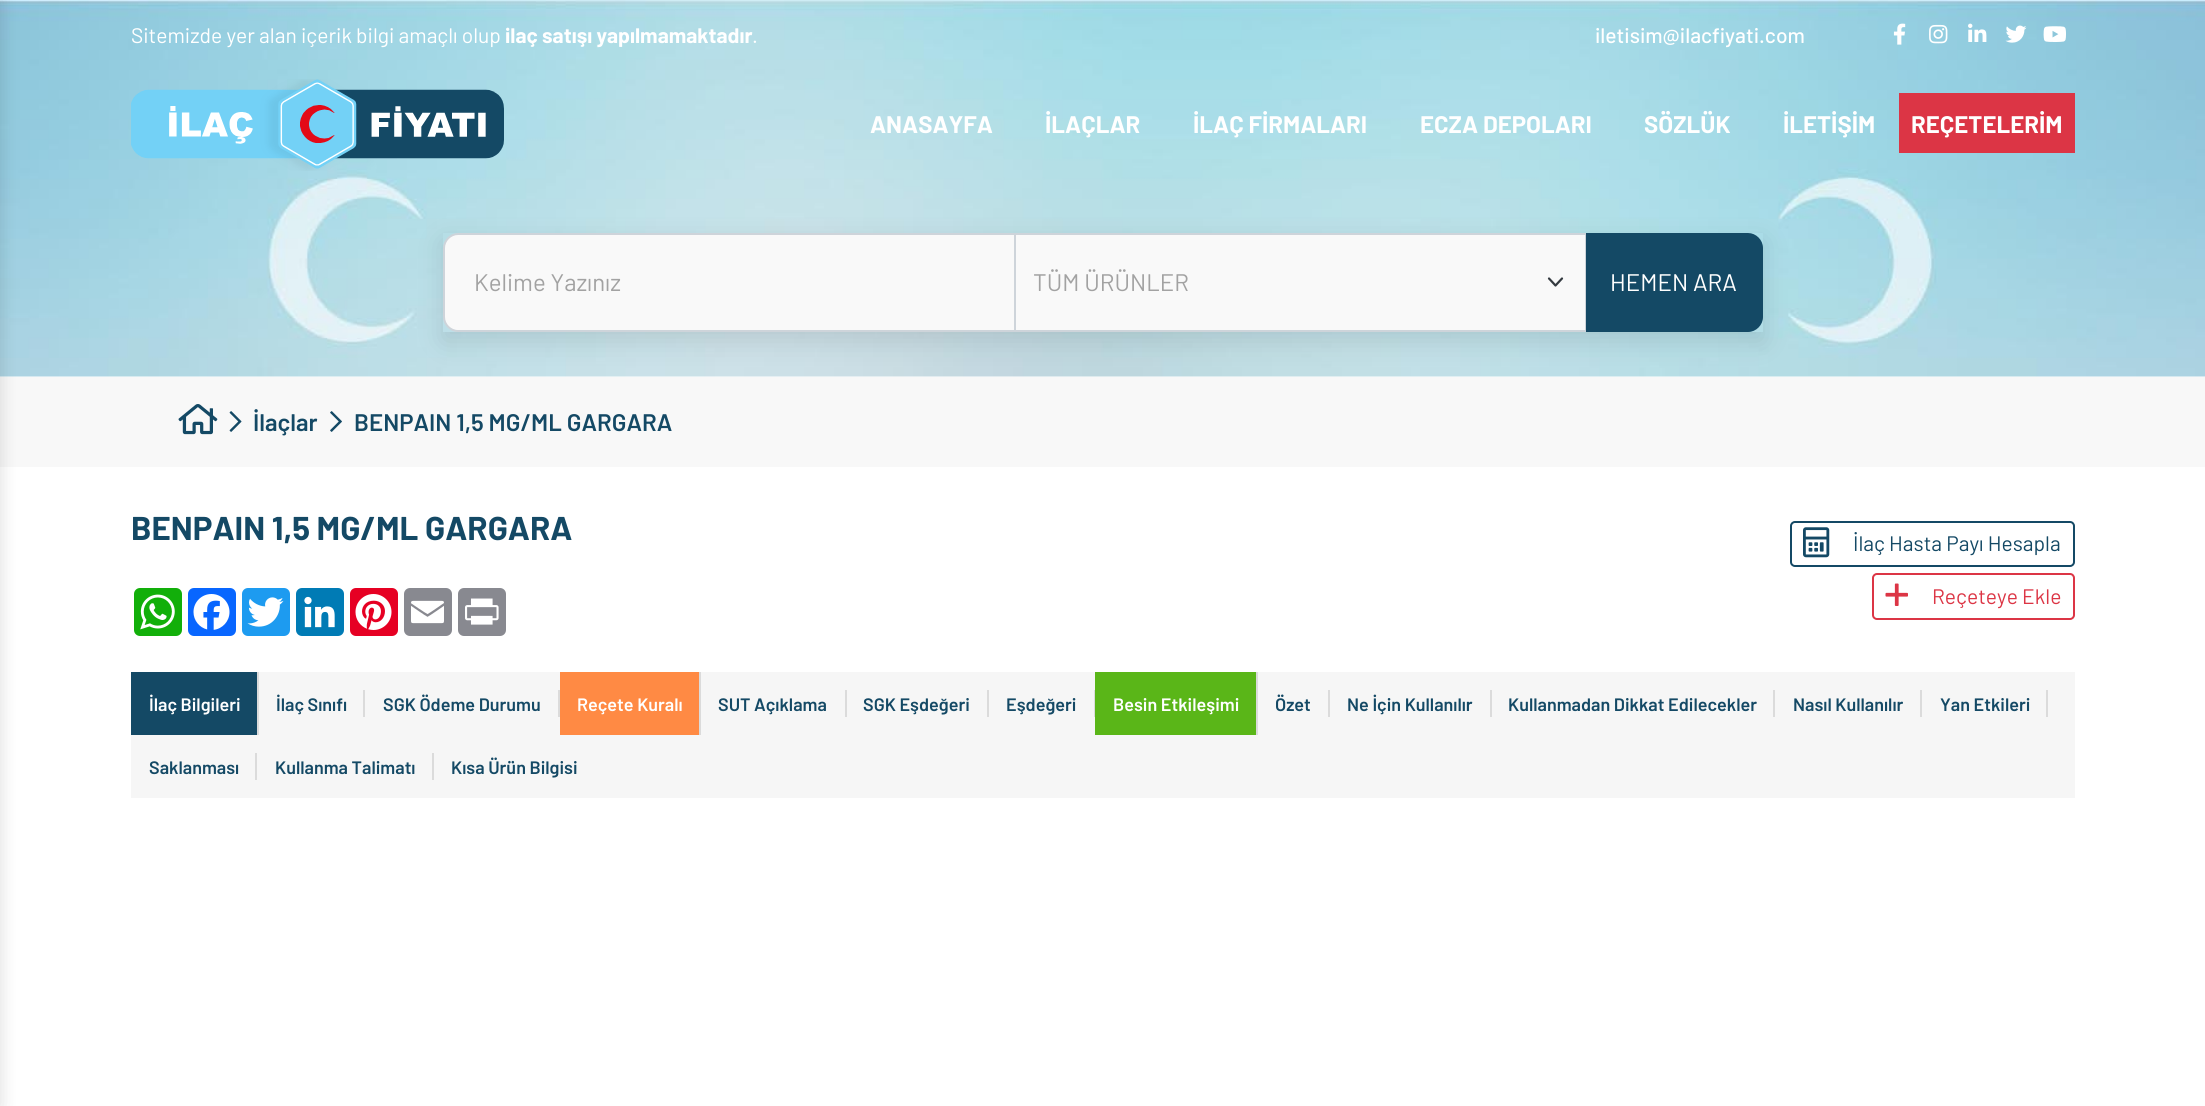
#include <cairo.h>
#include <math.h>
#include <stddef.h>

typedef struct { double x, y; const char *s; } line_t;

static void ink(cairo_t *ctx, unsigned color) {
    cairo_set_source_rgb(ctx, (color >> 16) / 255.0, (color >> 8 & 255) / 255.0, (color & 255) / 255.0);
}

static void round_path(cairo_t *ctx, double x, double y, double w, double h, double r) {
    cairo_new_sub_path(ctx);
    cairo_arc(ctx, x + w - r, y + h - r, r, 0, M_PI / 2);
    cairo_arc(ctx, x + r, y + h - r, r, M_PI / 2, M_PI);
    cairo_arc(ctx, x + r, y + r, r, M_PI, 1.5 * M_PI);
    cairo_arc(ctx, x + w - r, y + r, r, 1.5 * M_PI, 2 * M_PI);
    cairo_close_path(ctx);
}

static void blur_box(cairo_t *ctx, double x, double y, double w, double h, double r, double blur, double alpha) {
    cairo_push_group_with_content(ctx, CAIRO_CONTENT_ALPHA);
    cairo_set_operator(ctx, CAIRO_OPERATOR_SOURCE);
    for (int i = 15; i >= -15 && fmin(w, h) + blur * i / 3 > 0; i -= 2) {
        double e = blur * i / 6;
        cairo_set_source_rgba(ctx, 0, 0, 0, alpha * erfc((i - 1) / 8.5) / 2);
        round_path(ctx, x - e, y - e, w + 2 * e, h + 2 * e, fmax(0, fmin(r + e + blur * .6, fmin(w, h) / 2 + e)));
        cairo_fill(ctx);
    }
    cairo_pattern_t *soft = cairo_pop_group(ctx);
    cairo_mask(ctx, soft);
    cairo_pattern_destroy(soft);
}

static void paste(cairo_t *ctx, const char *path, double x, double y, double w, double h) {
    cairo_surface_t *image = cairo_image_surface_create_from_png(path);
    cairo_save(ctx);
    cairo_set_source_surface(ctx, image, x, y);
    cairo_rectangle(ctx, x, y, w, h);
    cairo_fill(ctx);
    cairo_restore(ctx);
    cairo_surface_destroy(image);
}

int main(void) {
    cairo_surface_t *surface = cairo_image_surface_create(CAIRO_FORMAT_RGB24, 2205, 1106);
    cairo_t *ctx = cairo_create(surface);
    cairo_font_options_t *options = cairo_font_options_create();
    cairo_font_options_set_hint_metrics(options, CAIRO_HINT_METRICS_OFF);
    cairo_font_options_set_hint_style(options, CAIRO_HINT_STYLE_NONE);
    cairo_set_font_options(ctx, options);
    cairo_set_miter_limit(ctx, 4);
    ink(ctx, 0xFFFFFF);
    cairo_paint(ctx);
    paste(ctx, "media/7.png", 0, 0, 2205, 377);
    ink(ctx, 0xF8F8F8);
    cairo_rectangle(ctx, 0, 377, 2205, 90);
    cairo_fill(ctx);
    ink(ctx, 0x000000);
    blur_box(ctx, -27, 0, 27, 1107, 0, 9, 0.14);
    cairo_select_font_face(ctx, "Barlow", CAIRO_FONT_SLANT_NORMAL, CAIRO_FONT_WEIGHT_NORMAL);
    cairo_set_font_size(ctx, 21);
    ink(ctx, 0xFFFFFF);
    cairo_move_to(ctx, 131, 43);
    cairo_show_text(ctx, "Sitemizde yer alan içerik bilgi amaçlı olup");
    cairo_select_font_face(ctx, "Barlow", CAIRO_FONT_SLANT_NORMAL, CAIRO_FONT_WEIGHT_BOLD);
    cairo_move_to(ctx, 505, 43);
    cairo_show_text(ctx, "ilaç satışı yapılmamaktadır");
    cairo_select_font_face(ctx, "Barlow", CAIRO_FONT_SLANT_NORMAL, CAIRO_FONT_WEIGHT_NORMAL);
    cairo_move_to(ctx, 752, 43);
    cairo_show_text(ctx, ".");
    cairo_select_font_face(ctx, "Barlow Medium", CAIRO_FONT_SLANT_NORMAL, CAIRO_FONT_WEIGHT_NORMAL);
    cairo_move_to(ctx, 1595, 43);
    cairo_show_text(ctx, "iletisim@ilacfiyati.com");
    paste(ctx, "media/1.png", 1893, 23, 13, 22);
    paste(ctx, "media/2.png", 1929, 24, 19, 20);
    paste(ctx, "media/3.png", 1968, 23, 19, 19);
    paste(ctx, "media/4.png", 2005, 25, 22, 18);
    paste(ctx, "media/5.png", 2043, 26, 23, 16);
    paste(ctx, "media/6.png", 131, 79, 373, 92);
    cairo_select_font_face(ctx, "Barlow", CAIRO_FONT_SLANT_NORMAL, CAIRO_FONT_WEIGHT_BOLD);
    cairo_set_font_size(ctx, 24);
    {
        static const line_t items[] = {
            {870, 133, "ANASAYFA"},
            {1045, 133, "İLAÇLAR"},
            {1193, 133, "İLAÇ FİRMALARI"},
            {1420, 133, "ECZA DEPOLARI"},
            {1644, 133, "SÖZLÜK"},
            {1783, 133, "İLETİŞİM"},
        };
        for (size_t i = 0; i < sizeof items / sizeof *items; i++) {
            cairo_move_to(ctx, items[i].x, items[i].y);
            cairo_show_text(ctx, items[i].s);
        }
    }
    ink(ctx, 0xDC3545);
    cairo_rectangle(ctx, 1899, 93, 176, 60);
    cairo_fill(ctx);
    ink(ctx, 0xFFFFFF);
    cairo_move_to(ctx, 1911, 133);
    cairo_show_text(ctx, "REÇETELERİM");
    cairo_save(ctx);
    cairo_set_fill_rule(ctx, CAIRO_FILL_RULE_EVEN_ODD);
    cairo_new_path(ctx);
    cairo_move_to(ctx, 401, 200);
    cairo_line_to(ctx, 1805, 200);
    cairo_line_to(ctx, 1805, 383);
    cairo_line_to(ctx, 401, 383);
    cairo_close_path(ctx);
    cairo_move_to(ctx, 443, 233);
    cairo_line_to(ctx, 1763, 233);
    cairo_line_to(ctx, 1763, 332);
    cairo_line_to(ctx, 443, 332);
    cairo_close_path(ctx);
    cairo_clip(ctx);
    ink(ctx, 0x000000);
    blur_box(ctx, 443, 242, 1320, 99, 0, 13.5, 0.11);
    cairo_restore(ctx);
    ink(ctx, 0xF9F9F9);
    cairo_new_path(ctx);
    cairo_move_to(ctx, 458, 234);
    cairo_line_to(ctx, 1015, 234);
    cairo_line_to(ctx, 1015, 331);
    cairo_line_to(ctx, 458, 331);
    cairo_curve_to(ctx, 450.5, 331, 444, 324.5, 444, 317);
    cairo_line_to(ctx, 444, 248);
    cairo_curve_to(ctx, 444, 240.5, 450.5, 234, 458, 234);
    cairo_close_path(ctx);
    cairo_fill_preserve(ctx);
    ink(ctx, 0xCED4DA);
    cairo_stroke(ctx);
    cairo_select_font_face(ctx, "Barlow", CAIRO_FONT_SLANT_NORMAL, CAIRO_FONT_WEIGHT_NORMAL);
    ink(ctx, 0xA2A2A2);
    cairo_move_to(ctx, 474, 291);
    cairo_show_text(ctx, "Kelime Yazınız");
    ink(ctx, 0xF9F9F9);
    cairo_rectangle(ctx, 1016, 235, 569, 95);
    cairo_fill(ctx);
    cairo_new_path(ctx);
    cairo_move_to(ctx, 1549, 278.5);
    cairo_line_to(ctx, 1555.5, 285.5);
    cairo_line_to(ctx, 1562, 278.5);
    ink(ctx, 0x343A40);
    cairo_set_line_width(ctx, 2.2);
    cairo_set_line_cap(ctx, CAIRO_LINE_CAP_ROUND);
    cairo_set_line_join(ctx, CAIRO_LINE_JOIN_ROUND);
    cairo_stroke(ctx);
    cairo_rectangle(ctx, 1015, 234, 571, 97);
    ink(ctx, 0xCED4DA);
    cairo_set_line_width(ctx, 2);
    cairo_set_line_cap(ctx, CAIRO_LINE_CAP_BUTT);
    cairo_set_line_join(ctx, CAIRO_LINE_JOIN_MITER);
    cairo_stroke(ctx);
    ink(ctx, 0xA2A2A2);
    cairo_move_to(ctx, 1033, 291);
    cairo_show_text(ctx, "TÜM ÜRÜNLER");
    ink(ctx, 0x144965);
    cairo_new_path(ctx);
    cairo_move_to(ctx, 1587, 234);
    cairo_line_to(ctx, 1748, 234);
    cairo_curve_to(ctx, 1755.5, 234, 1762, 240.5, 1762, 248);
    cairo_line_to(ctx, 1762, 317);
    cairo_curve_to(ctx, 1762, 324.5, 1755.5, 331, 1748, 331);
    cairo_line_to(ctx, 1587, 331);
    cairo_close_path(ctx);
    cairo_fill_preserve(ctx);
    cairo_stroke(ctx);
    ink(ctx, 0xFFFFFF);
    cairo_move_to(ctx, 1610, 291);
    cairo_show_text(ctx, "HEMEN ARA");
    paste(ctx, "media/8.png", 178, 404, 40, 31);
    paste(ctx, "media/9.png", 229, 411, 13, 21);
    cairo_select_font_face(ctx, "Barlow SemiBold", CAIRO_FONT_SLANT_NORMAL, CAIRO_FONT_WEIGHT_NORMAL);
    ink(ctx, 0x144965);
    cairo_move_to(ctx, 253, 431);
    cairo_show_text(ctx, "İlaçlar");
    paste(ctx, "media/10.png", 330, 411, 12, 21);
    cairo_move_to(ctx, 354, 431);
    cairo_show_text(ctx, "BENPAIN 1,5 MG/ML GARGARA");
    cairo_select_font_face(ctx, "Barlow", CAIRO_FONT_SLANT_NORMAL, CAIRO_FONT_WEIGHT_BOLD);
    cairo_set_font_size(ctx, 33);
    cairo_move_to(ctx, 131, 540);
    cairo_show_text(ctx, "BENPAIN 1,5 MG/ML GARGARA");
    ink(ctx, 0x12AF0A);
    round_path(ctx, 134, 588, 48, 48, 6);
    cairo_fill(ctx);
    paste(ctx, "media/11.png", 140, 594, 35, 36);
    ink(ctx, 0x0866FF);
    round_path(ctx, 188, 588, 48, 48, 6);
    cairo_fill(ctx);
    paste(ctx, "media/12.png", 193, 594, 37, 36);
    ink(ctx, 0x1D9BF0);
    round_path(ctx, 242, 588, 48, 48, 6);
    cairo_fill(ctx);
    paste(ctx, "media/13.png", 247, 597, 37, 30);
    ink(ctx, 0x007BB5);
    round_path(ctx, 296, 588, 48, 48, 6);
    cairo_fill(ctx);
    paste(ctx, "media/14.png", 304, 596, 31, 32);
    ink(ctx, 0xE60023);
    round_path(ctx, 350, 588, 48, 48, 6);
    cairo_fill(ctx);
    paste(ctx, "media/15.png", 355, 594, 37, 36);
    ink(ctx, 0x888990);
    round_path(ctx, 404, 588, 48, 48, 6);
    cairo_fill(ctx);
    paste(ctx, "media/16.png", 411, 600, 33, 24);
    round_path(ctx, 458, 588, 48, 48, 6);
    cairo_fill(ctx);
    paste(ctx, "media/17.png", 465, 598, 34, 27);
    round_path(ctx, 1791, 522, 283, 44, 4);
    ink(ctx, 0x144965);
    cairo_stroke(ctx);
    paste(ctx, "media/18.png", 1803, 527, 27, 31);
    cairo_select_font_face(ctx, "Barlow", CAIRO_FONT_SLANT_NORMAL, CAIRO_FONT_WEIGHT_NORMAL);
    cairo_set_font_size(ctx, 21);
    cairo_move_to(ctx, 1853, 551);
    cairo_show_text(ctx, "İlaç Hasta Payı Hesapla");
    round_path(ctx, 1873, 574, 201, 45, 4);
    ink(ctx, 0xDC3545);
    cairo_stroke(ctx);
    paste(ctx, "media/19.png", 1885, 583, 23, 23);
    cairo_move_to(ctx, 1932, 604);
    cairo_show_text(ctx, "Reçeteye Ekle");
    ink(ctx, 0xF6F6F6);
    cairo_rectangle(ctx, 131, 672, 1944, 126);
    cairo_fill(ctx);
    ink(ctx, 0x144965);
    cairo_rectangle(ctx, 131, 672, 126, 63);
    cairo_fill(ctx);
    cairo_select_font_face(ctx, "Barlow SemiBold", CAIRO_FONT_SLANT_NORMAL, CAIRO_FONT_WEIGHT_NORMAL);
    cairo_set_font_size(ctx, 18);
    ink(ctx, 0xFFFFFF);
    cairo_move_to(ctx, 149, 711);
    cairo_show_text(ctx, "İlaç Bilgileri");
    ink(ctx, 0xDBDBDB);
    cairo_rectangle(ctx, 257, 672, 2, 63);
    cairo_fill(ctx);
    ink(ctx, 0x144965);
    cairo_move_to(ctx, 276, 711);
    cairo_show_text(ctx, "İlaç Sınıfı");
    ink(ctx, 0xDBDBDB);
    cairo_rectangle(ctx, 363, 690, 2, 27);
    cairo_fill(ctx);
    ink(ctx, 0x144965);
    cairo_move_to(ctx, 383, 711);
    cairo_show_text(ctx, "SGK Ödeme Durumu");
    ink(ctx, 0xDBDBDB);
    cairo_rectangle(ctx, 558, 690, 2, 27);
    cairo_fill(ctx);
    ink(ctx, 0xFF8A44);
    cairo_rectangle(ctx, 560, 672, 139, 63);
    cairo_fill(ctx);
    ink(ctx, 0xFFFFFF);
    cairo_move_to(ctx, 577, 711);
    cairo_show_text(ctx, "Reçete Kuralı");
    ink(ctx, 0xDBDBDB);
    cairo_rectangle(ctx, 699, 672, 2, 63);
    cairo_fill(ctx);
    ink(ctx, 0x144965);
    cairo_move_to(ctx, 718, 711);
    cairo_show_text(ctx, "SUT Açıklama");
    ink(ctx, 0xDBDBDB);
    cairo_rectangle(ctx, 845, 690, 2, 27);
    cairo_fill(ctx);
    ink(ctx, 0x144965);
    cairo_move_to(ctx, 863, 711);
    cairo_show_text(ctx, "SGK Eşdeğeri");
    ink(ctx, 0xDBDBDB);
    cairo_rectangle(ctx, 987, 690, 2, 27);
    cairo_fill(ctx);
    ink(ctx, 0x144965);
    cairo_move_to(ctx, 1006, 711);
    cairo_show_text(ctx, "Eşdeğeri");
    ink(ctx, 0xDBDBDB);
    cairo_rectangle(ctx, 1094, 690, 1, 27);
    cairo_fill(ctx);
    ink(ctx, 0x5AB618);
    cairo_rectangle(ctx, 1095, 672, 161, 63);
    cairo_fill(ctx);
    ink(ctx, 0xFFFFFF);
    cairo_move_to(ctx, 1113, 711);
    cairo_show_text(ctx, "Besin Etkileşimi");
    ink(ctx, 0xDBDBDB);
    cairo_rectangle(ctx, 1256, 672, 2, 63);
    cairo_fill(ctx);
    ink(ctx, 0x144965);
    cairo_move_to(ctx, 1275, 711);
    cairo_show_text(ctx, "Özet");
    ink(ctx, 0xDBDBDB);
    cairo_rectangle(ctx, 1328, 690, 2, 27);
    cairo_fill(ctx);
    ink(ctx, 0x144965);
    cairo_move_to(ctx, 1347, 711);
    cairo_show_text(ctx, "Ne İçin Kullanılır");
    ink(ctx, 0xDBDBDB);
    cairo_rectangle(ctx, 1490, 690, 2, 27);
    cairo_fill(ctx);
    ink(ctx, 0x144965);
    cairo_move_to(ctx, 1508, 711);
    cairo_show_text(ctx, "Kullanmadan Dikkat Edilecekler");
    ink(ctx, 0xDBDBDB);
    cairo_rectangle(ctx, 1773, 690, 2, 27);
    cairo_fill(ctx);
    ink(ctx, 0x144965);
    cairo_move_to(ctx, 1793, 711);
    cairo_show_text(ctx, "Nasıl Kullanılır");
    ink(ctx, 0xDBDBDB);
    cairo_rectangle(ctx, 1920, 690, 2, 27);
    cairo_fill(ctx);
    ink(ctx, 0x144965);
    cairo_move_to(ctx, 1940, 711);
    cairo_show_text(ctx, "Yan Etkileri");
    ink(ctx, 0xDBDBDB);
    cairo_rectangle(ctx, 2046, 690, 2, 27);
    cairo_fill(ctx);
    ink(ctx, 0x144965);
    cairo_move_to(ctx, 149, 774);
    cairo_show_text(ctx, "Saklanması");
    ink(ctx, 0xDBDBDB);
    cairo_rectangle(ctx, 255, 753, 2, 27);
    cairo_fill(ctx);
    ink(ctx, 0x144965);
    cairo_move_to(ctx, 275, 774);
    cairo_show_text(ctx, "Kullanma Talimatı");
    ink(ctx, 0xDBDBDB);
    cairo_rectangle(ctx, 432, 753, 2, 27);
    cairo_fill(ctx);
    ink(ctx, 0x144965);
    cairo_move_to(ctx, 451, 774);
    cairo_show_text(ctx, "Kısa Ürün Bilgisi");
    cairo_surface_write_to_png(surface, "image.png");
    cairo_font_options_destroy(options);
    cairo_destroy(ctx);
    cairo_surface_destroy(surface);
    return 0;
}
